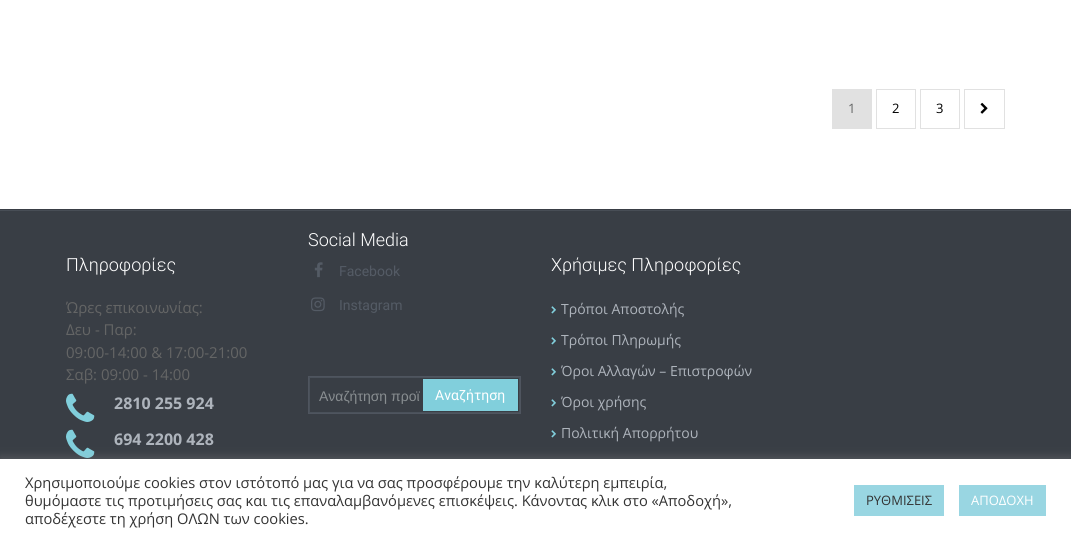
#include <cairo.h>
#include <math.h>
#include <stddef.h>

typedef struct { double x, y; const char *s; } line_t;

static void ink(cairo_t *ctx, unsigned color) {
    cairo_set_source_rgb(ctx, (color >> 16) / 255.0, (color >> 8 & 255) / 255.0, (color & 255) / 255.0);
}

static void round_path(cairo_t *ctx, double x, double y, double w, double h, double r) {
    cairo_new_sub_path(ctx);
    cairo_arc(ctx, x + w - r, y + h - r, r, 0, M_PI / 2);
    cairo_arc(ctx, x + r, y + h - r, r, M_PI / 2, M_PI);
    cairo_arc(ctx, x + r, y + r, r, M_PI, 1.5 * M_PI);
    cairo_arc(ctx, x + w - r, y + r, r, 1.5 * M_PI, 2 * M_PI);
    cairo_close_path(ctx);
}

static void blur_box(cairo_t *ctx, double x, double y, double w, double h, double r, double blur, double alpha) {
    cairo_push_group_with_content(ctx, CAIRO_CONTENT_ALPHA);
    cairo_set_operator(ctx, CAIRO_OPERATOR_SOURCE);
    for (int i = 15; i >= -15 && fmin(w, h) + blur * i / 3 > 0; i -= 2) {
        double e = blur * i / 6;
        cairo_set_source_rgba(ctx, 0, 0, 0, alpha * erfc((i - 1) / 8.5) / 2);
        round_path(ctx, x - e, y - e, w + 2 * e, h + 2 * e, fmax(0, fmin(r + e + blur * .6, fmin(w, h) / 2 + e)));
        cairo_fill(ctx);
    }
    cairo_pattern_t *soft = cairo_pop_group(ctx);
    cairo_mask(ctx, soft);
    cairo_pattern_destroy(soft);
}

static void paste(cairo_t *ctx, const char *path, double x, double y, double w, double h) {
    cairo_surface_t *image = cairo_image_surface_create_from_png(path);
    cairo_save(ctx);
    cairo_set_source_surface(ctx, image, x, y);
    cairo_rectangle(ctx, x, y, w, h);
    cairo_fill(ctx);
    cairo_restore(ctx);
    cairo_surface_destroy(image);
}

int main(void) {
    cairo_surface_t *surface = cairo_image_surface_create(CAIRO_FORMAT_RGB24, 1071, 541);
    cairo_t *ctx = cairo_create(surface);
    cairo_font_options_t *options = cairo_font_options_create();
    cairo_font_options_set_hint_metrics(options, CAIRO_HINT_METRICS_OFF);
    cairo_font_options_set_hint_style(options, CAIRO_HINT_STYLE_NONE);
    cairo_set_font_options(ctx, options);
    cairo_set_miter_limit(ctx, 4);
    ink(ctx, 0xFFFFFF);
    cairo_paint(ctx);
    ink(ctx, 0xE1E1E1);
    cairo_rectangle(ctx, 832, 89, 40, 40);
    cairo_fill(ctx);
    cairo_select_font_face(ctx, "Open Sans", CAIRO_FONT_SLANT_NORMAL, CAIRO_FONT_WEIGHT_NORMAL);
    cairo_set_font_size(ctx, 13);
    ink(ctx, 0x646565);
    cairo_move_to(ctx, 848, 113);
    cairo_show_text(ctx, "1");
    cairo_rectangle(ctx, 876.5, 89.5, 39, 39);
    ink(ctx, 0xE1E1E1);
    cairo_set_line_width(ctx, 1);
    cairo_stroke(ctx);
    ink(ctx, 0x000000);
    cairo_move_to(ctx, 892, 113);
    cairo_show_text(ctx, "2");
    cairo_rectangle(ctx, 920.5, 89.5, 39, 39);
    ink(ctx, 0xE1E1E1);
    cairo_stroke(ctx);
    ink(ctx, 0x000000);
    cairo_move_to(ctx, 936, 113);
    cairo_show_text(ctx, "3");
    cairo_rectangle(ctx, 964.5, 89.5, 40, 39);
    ink(ctx, 0xE1E1E1);
    cairo_stroke(ctx);
    paste(ctx, "media/1.png", 980, 102, 8, 12);
    ink(ctx, 0x393E45);
    cairo_rectangle(ctx, 0, 209, 1071, 250);
    cairo_fill(ctx);
    ink(ctx, 0x484E56);
    cairo_rectangle(ctx, 0, 210, 1071, 1);
    cairo_fill(ctx);
    cairo_select_font_face(ctx, "Roboto Light", CAIRO_FONT_SLANT_NORMAL, CAIRO_FONT_WEIGHT_NORMAL);
    cairo_set_font_size(ctx, 18);
    ink(ctx, 0xFFFFFF);
    cairo_move_to(ctx, 66, 271);
    cairo_show_text(ctx, "Πληροφορίες");
    cairo_select_font_face(ctx, "Open Sans", CAIRO_FONT_SLANT_NORMAL, CAIRO_FONT_WEIGHT_NORMAL);
    cairo_set_font_size(ctx, 15);
    ink(ctx, 0x646565);
    {
        static const line_t items[] = {
            {66, 313, "Ώρες επικοινωνίας:"},
            {66, 335, "Δευ - Παρ:"},
            {66, 358, "09:00-14:00 & 17:00-21:00"},
            {66, 380, "Σαβ: 09:00 - 14:00"},
        };
        for (size_t i = 0; i < sizeof items / sizeof *items; i++) {
            cairo_move_to(ctx, items[i].x, items[i].y);
            cairo_show_text(ctx, items[i].s);
        }
    }
    paste(ctx, "media/2.png", 66, 393, 29, 29);
    cairo_select_font_face(ctx, "Open Sans", CAIRO_FONT_SLANT_NORMAL, CAIRO_FONT_WEIGHT_BOLD);
    cairo_set_font_size(ctx, 16);
    ink(ctx, 0xAEB4BC);
    cairo_move_to(ctx, 114, 409);
    cairo_show_text(ctx, "2810 255 924");
    paste(ctx, "media/2.png", 66, 429, 29, 29);
    cairo_move_to(ctx, 114, 445);
    cairo_show_text(ctx, "694 2200 428");
    cairo_select_font_face(ctx, "Roboto Light", CAIRO_FONT_SLANT_NORMAL, CAIRO_FONT_WEIGHT_NORMAL);
    cairo_set_font_size(ctx, 18);
    ink(ctx, 0xFFFFFF);
    cairo_move_to(ctx, 308, 246);
    cairo_show_text(ctx, "Social Media");
    paste(ctx, "media/3.png", 314, 262, 9, 16);
    cairo_select_font_face(ctx, "Roboto", CAIRO_FONT_SLANT_NORMAL, CAIRO_FONT_WEIGHT_NORMAL);
    cairo_set_font_size(ctx, 14);
    ink(ctx, 0x545B65);
    cairo_move_to(ctx, 339, 276);
    cairo_show_text(ctx, "Facebook");
    paste(ctx, "media/4.png", 311, 297, 14, 15);
    cairo_move_to(ctx, 339, 310);
    cairo_show_text(ctx, "Instagram");
    cairo_rectangle(ctx, 309.5, 377.5, 210, 35);
    ink(ctx, 0x4A515A);
    cairo_stroke(ctx);
    cairo_rectangle(ctx, 308.5, 376.5, 212, 37);
    ink(ctx, 0x4F555F);
    cairo_stroke(ctx);
    cairo_select_font_face(ctx, "Liberation Sans", CAIRO_FONT_SLANT_NORMAL, CAIRO_FONT_WEIGHT_NORMAL);
    ink(ctx, 0x898E91);
    cairo_move_to(ctx, 319, 401);
    cairo_show_text(ctx, "Αναζήτηση προϊ");
    ink(ctx, 0x81CFDC);
    cairo_rectangle(ctx, 423, 379, 95, 32);
    cairo_fill(ctx);
    cairo_select_font_face(ctx, "Roboto", CAIRO_FONT_SLANT_NORMAL, CAIRO_FONT_WEIGHT_NORMAL);
    ink(ctx, 0xFFFFFF);
    cairo_move_to(ctx, 435, 400);
    cairo_show_text(ctx, "Αναζήτηση");
    cairo_select_font_face(ctx, "Roboto Light", CAIRO_FONT_SLANT_NORMAL, CAIRO_FONT_WEIGHT_NORMAL);
    cairo_set_font_size(ctx, 18);
    cairo_move_to(ctx, 551, 271);
    cairo_show_text(ctx, "Χρήσιμες Πληροφορίες");
    paste(ctx, "media/5.png", 551, 306, 5, 8);
    cairo_select_font_face(ctx, "Open Sans", CAIRO_FONT_SLANT_NORMAL, CAIRO_FONT_WEIGHT_NORMAL);
    cairo_set_font_size(ctx, 14);
    ink(ctx, 0xAEB4BC);
    cairo_move_to(ctx, 561, 314);
    cairo_show_text(ctx, "Τρόποι Αποστολής");
    paste(ctx, "media/5.png", 551, 337, 5, 8);
    cairo_move_to(ctx, 561, 345);
    cairo_show_text(ctx, "Τρόποι Πληρωμής");
    paste(ctx, "media/5.png", 551, 368, 5, 8);
    cairo_move_to(ctx, 561, 376);
    cairo_show_text(ctx, "Όροι Αλλαγών – Επιστροφών");
    paste(ctx, "media/5.png", 551, 399, 5, 8);
    cairo_move_to(ctx, 561, 407);
    cairo_show_text(ctx, "Όροι χρήσης");
    paste(ctx, "media/5.png", 551, 430, 5, 8);
    cairo_move_to(ctx, 561, 438);
    cairo_show_text(ctx, "Πολιτική Απορρήτου");
    ink(ctx, 0xACABAB);
    blur_box(ctx, 0, 458, 1071, 82, 0, 5, 0.3);
    ink(ctx, 0xFFFFFF);
    cairo_rectangle(ctx, 0, 459, 1071, 82);
    cairo_fill(ctx);
    cairo_set_font_size(ctx, 14.65);
    ink(ctx, 0x333333);
    {
        static const line_t items[] = {
            {25, 488, "Χρησιμοποιούμε cookies στον ιστότοπό μας για να σας προσφέρουμε την καλύτερη εμπειρία,"},
            {25, 506, "θυμόμαστε τις προτιμήσεις σας και τις επαναλαμβανόμενες επισκέψεις. Κάνοντας κλικ στο «Αποδοχή»,"},
            {25, 524, "αποδέχεστε τη χρήση ΟΛΩΝ των cookies."},
        };
        for (size_t i = 0; i < sizeof items / sizeof *items; i++) {
            cairo_move_to(ctx, items[i].x, items[i].y);
            cairo_show_text(ctx, items[i].s);
        }
    }
    ink(ctx, 0x99D6E2);
    cairo_rectangle(ctx, 854, 485, 90, 31);
    cairo_fill(ctx);
    cairo_set_font_size(ctx, 13);
    ink(ctx, 0x333333);
    cairo_move_to(ctx, 866, 505);
    cairo_show_text(ctx, "ΡΥΘΜΙΣΕΙΣ");
    ink(ctx, 0x99D6E2);
    cairo_rectangle(ctx, 959, 485, 87, 31);
    cairo_fill(ctx);
    ink(ctx, 0xFFFFFF);
    cairo_move_to(ctx, 971, 505);
    cairo_show_text(ctx, "ΑΠΟΔΟΧΗ");
    cairo_surface_write_to_png(surface, "image.png");
    cairo_font_options_destroy(options);
    cairo_destroy(ctx);
    cairo_surface_destroy(surface);
    return 0;
}
